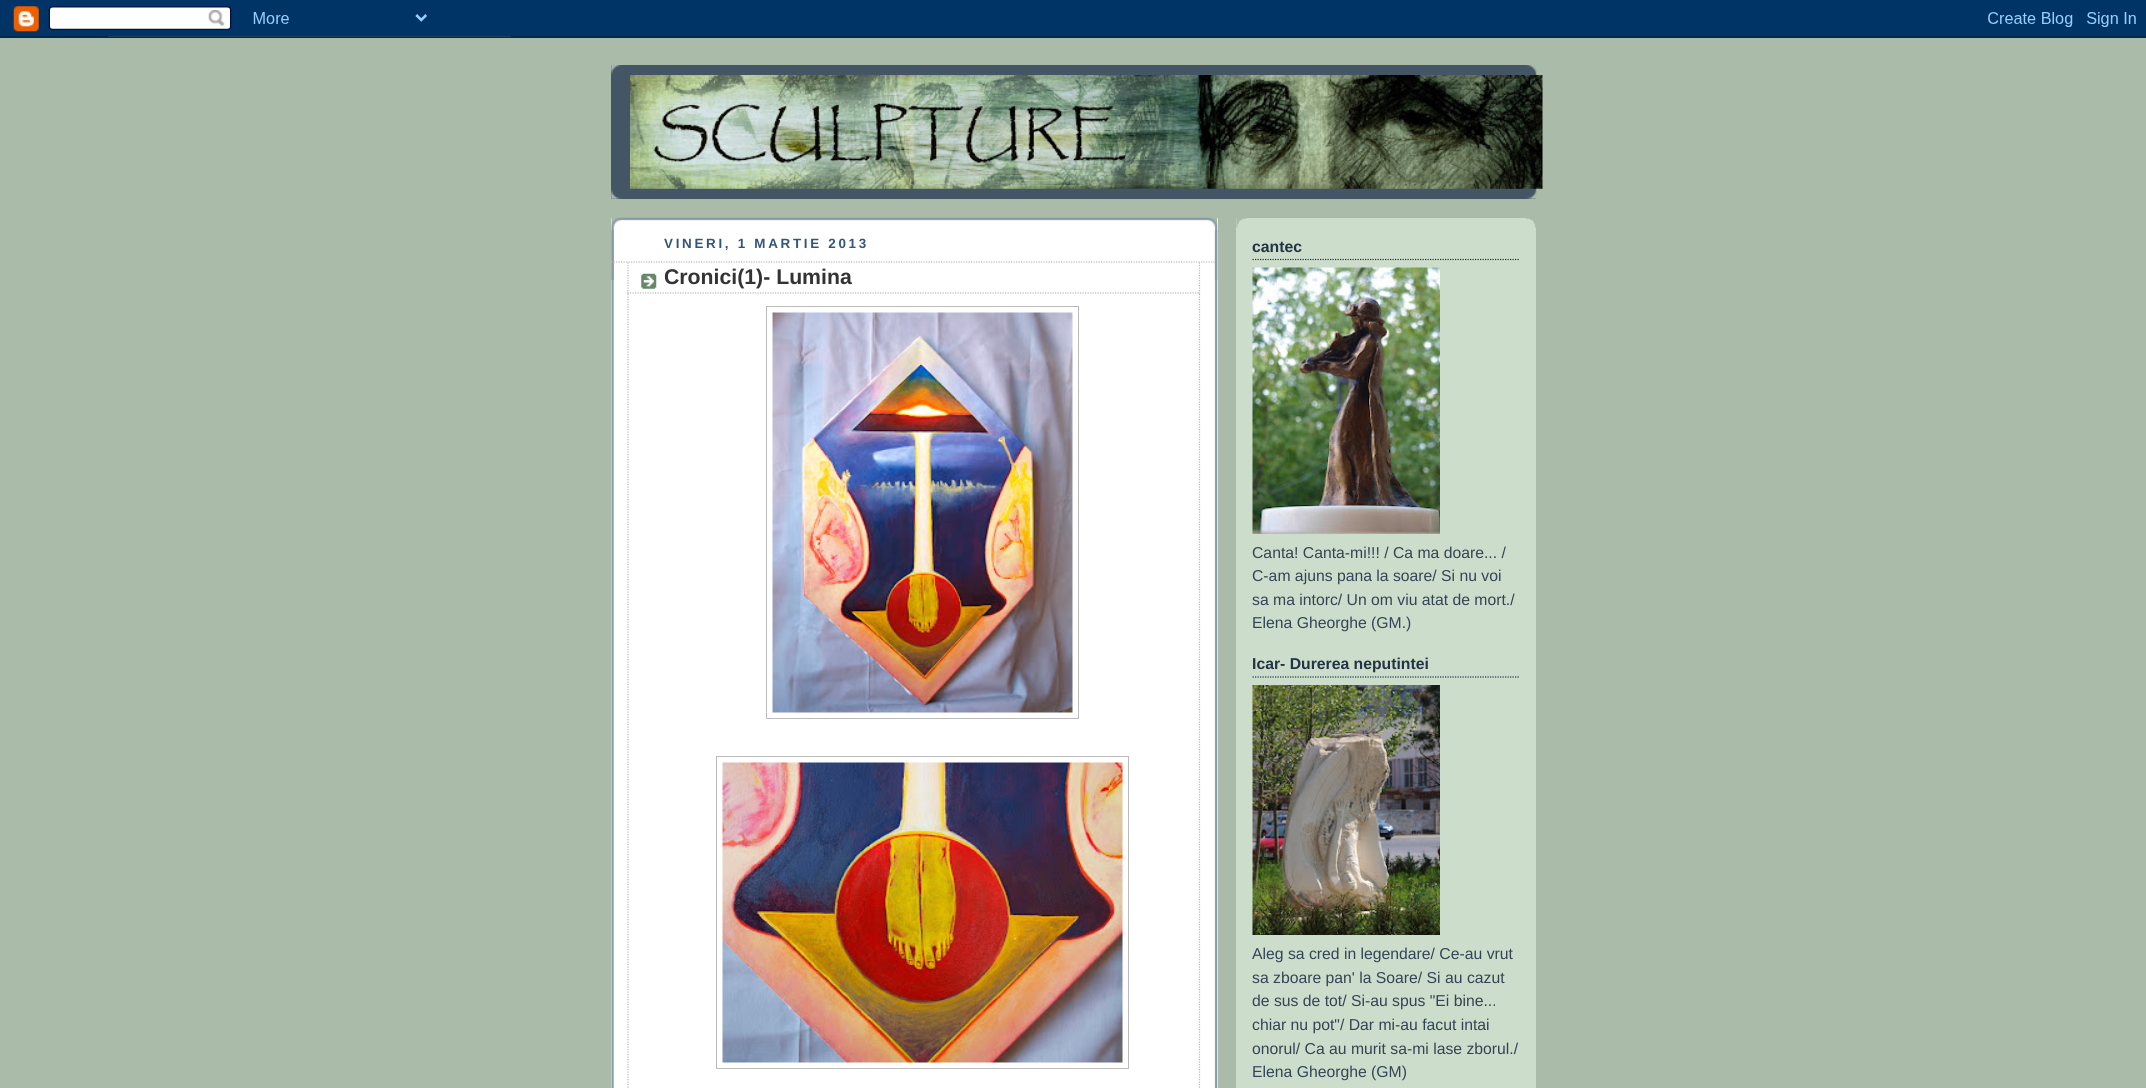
#include <cairo.h>
#include <math.h>
#include <stddef.h>

typedef struct { double x, y; const char *s; } line_t;

static void ink(cairo_t *ctx, unsigned color) {
    cairo_set_source_rgb(ctx, (color >> 16) / 255.0, (color >> 8 & 255) / 255.0, (color & 255) / 255.0);
}

static void write_spaced(cairo_t *ctx, double x, double y, const char *s, double letter, double word) {
    cairo_move_to(ctx, x, y);
    while (*s) {
        char ch[5] = {0};
        int n = 0;
        do ch[n++] = *s++; while ((*s & 0xC0) == 0x80);
        cairo_show_text(ctx, ch);
        cairo_rel_move_to(ctx, letter + word * (*ch == ' '), 0);
    }
}

static void paste(cairo_t *ctx, const char *path, double x, double y, double w, double h) {
    cairo_surface_t *image = cairo_image_surface_create_from_png(path);
    cairo_save(ctx);
    cairo_set_source_surface(ctx, image, x, y);
    cairo_rectangle(ctx, x, y, w, h);
    cairo_fill(ctx);
    cairo_restore(ctx);
    cairo_surface_destroy(image);
}

int main(void) {
    cairo_surface_t *surface = cairo_image_surface_create(CAIRO_FORMAT_RGB24, 2146, 1088);
    cairo_t *ctx = cairo_create(surface);
    cairo_font_options_t *options = cairo_font_options_create();
    cairo_font_options_set_hint_metrics(options, CAIRO_HINT_METRICS_OFF);
    cairo_font_options_set_hint_style(options, CAIRO_HINT_STYLE_NONE);
    cairo_set_font_options(ctx, options);
    cairo_set_miter_limit(ctx, 4);
    ink(ctx, 0xAABBAA);
    cairo_paint(ctx);
    paste(ctx, "media/1.png", 0, 0, 2146, 38);
    ink(ctx, 0x445566);
    cairo_rectangle(ctx, 611, 65, 925, 134);
    cairo_fill(ctx);
    paste(ctx, "media/2.png", 611, 65, 926, 10);
    paste(ctx, "media/3.png", 611, 188, 926, 11);
    paste(ctx, "media/4.png", 630, 75, 913, 114);
    ink(ctx, 0xFFFFFF);
    cairo_rectangle(ctx, 611, 218, 607, 870);
    cairo_fill(ctx);
    paste(ctx, "media/5.png", 611, 217, 607, 63);
    paste(ctx, "media/6.png", 611, 230, 607, 858);
    cairo_select_font_face(ctx, "Liberation Sans", CAIRO_FONT_SLANT_NORMAL, CAIRO_FONT_WEIGHT_BOLD);
    cairo_set_font_size(ctx, 13.4);
    ink(ctx, 0x335577);
    write_spaced(ctx, 664, 248, "VINERI, 1 MARTIE 2013", 2.7, 0);
    cairo_new_path(ctx);
    cairo_move_to(ctx, 611, 262);
    cairo_line_to(ctx, 1216, 262);
    ink(ctx, 0xBBBBBB);
    cairo_set_line_width(ctx, 1.2);
    cairo_set_dash(ctx, (double[]){1.25, 1.25}, 2, 0);
    cairo_stroke(ctx);
    paste(ctx, "media/7.png", 641, 273, 16, 16);
    cairo_new_path(ctx);
    cairo_move_to(ctx, 1199.5, 262.5);
    cairo_line_to(ctx, 1199.5, 294);
    cairo_stroke(ctx);
    cairo_new_path(ctx);
    cairo_move_to(ctx, 627.5, 293);
    cairo_line_to(ctx, 1200, 293);
    cairo_stroke(ctx);
    cairo_new_path(ctx);
    cairo_move_to(ctx, 628, 262.5);
    cairo_line_to(ctx, 628, 294);
    cairo_stroke(ctx);
    cairo_set_font_size(ctx, 21.25);
    ink(ctx, 0x333333);
    cairo_move_to(ctx, 664, 284);
    cairo_show_text(ctx, "Cronici(1)- Lumina");
    cairo_new_path(ctx);
    cairo_move_to(ctx, 1199.5, 294);
    cairo_line_to(ctx, 1199.5, 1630);
    ink(ctx, 0xBBBBBB);
    cairo_stroke(ctx);
    cairo_new_path(ctx);
    cairo_move_to(ctx, 628, 294);
    cairo_line_to(ctx, 628, 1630);
    cairo_stroke(ctx);
    cairo_rectangle(ctx, 766.5, 306.5, 312, 412);
    cairo_set_line_width(ctx, 1);
    cairo_set_dash(ctx, NULL, 0, 0);
    cairo_stroke(ctx);
    paste(ctx, "media/8.png", 772, 312, 301, 401);
    cairo_rectangle(ctx, 716.5, 756.5, 412, 312);
    cairo_stroke(ctx);
    paste(ctx, "media/9.png", 722, 762, 401, 301);
    ink(ctx, 0xCCDDCC);
    cairo_rectangle(ctx, 1236, 218, 300, 870);
    cairo_fill(ctx);
    paste(ctx, "media/10.png", 1236, 218, 300, 10);
    cairo_new_path(ctx);
    cairo_move_to(ctx, 1252.5, 259.5);
    cairo_line_to(ctx, 1520, 259.5);
    ink(ctx, 0x223344);
    cairo_set_line_width(ctx, 1.2);
    cairo_set_dash(ctx, (double[]){1.25, 1.25}, 2, 0);
    cairo_stroke(ctx);
    cairo_set_font_size(ctx, 15.75);
    cairo_move_to(ctx, 1252, 252);
    cairo_show_text(ctx, "cantec");
    paste(ctx, "media/11.png", 1252, 267, 188, 267);
    cairo_select_font_face(ctx, "Liberation Sans", CAIRO_FONT_SLANT_NORMAL, CAIRO_FONT_WEIGHT_NORMAL);
    ink(ctx, 0x334455);
    {
        static const line_t items[] = {
            {1252, 558, "Canta! Canta-mi!!! / Ca ma doare... /"},
            {1252, 581, "C-am ajuns pana la soare/ Si nu voi"},
            {1252, 605, "sa ma intorc/ Un om viu atat de mort./"},
            {1252, 628, "Elena Gheorghe (GM.)"},
        };
        for (size_t i = 0; i < sizeof items / sizeof *items; i++) {
            cairo_move_to(ctx, items[i].x, items[i].y);
            cairo_show_text(ctx, items[i].s);
        }
    }
    cairo_new_path(ctx);
    cairo_move_to(ctx, 1252.5, 677);
    cairo_line_to(ctx, 1520, 677);
    ink(ctx, 0x223344);
    cairo_stroke(ctx);
    cairo_select_font_face(ctx, "Liberation Sans", CAIRO_FONT_SLANT_NORMAL, CAIRO_FONT_WEIGHT_BOLD);
    cairo_move_to(ctx, 1252, 669);
    cairo_show_text(ctx, "Icar- Durerea neputintei");
    paste(ctx, "media/12.png", 1252, 685, 188, 250);
    cairo_select_font_face(ctx, "Liberation Sans", CAIRO_FONT_SLANT_NORMAL, CAIRO_FONT_WEIGHT_NORMAL);
    ink(ctx, 0x334455);
    {
        static const line_t items[] = {
            {1252, 959, "Aleg sa cred in legendare/ Ce-au vrut"},
            {1252, 983, "sa zboare pan' la Soare/ Si au cazut"},
            {1252, 1006, "de sus de tot/ Si-au spus \"Ei bine..."},
            {1252, 1030, "chiar nu pot\"/ Dar mi-au facut intai"},
            {1252, 1054, "onorul/ Ca au murit sa-mi lase zborul./"},
            {1252, 1077, "Elena Gheorghe (GM)"},
        };
        for (size_t i = 0; i < sizeof items / sizeof *items; i++) {
            cairo_move_to(ctx, items[i].x, items[i].y);
            cairo_show_text(ctx, items[i].s);
        }
    }
    cairo_surface_write_to_png(surface, "image.png");
    cairo_font_options_destroy(options);
    cairo_destroy(ctx);
    cairo_surface_destroy(surface);
    return 0;
}
